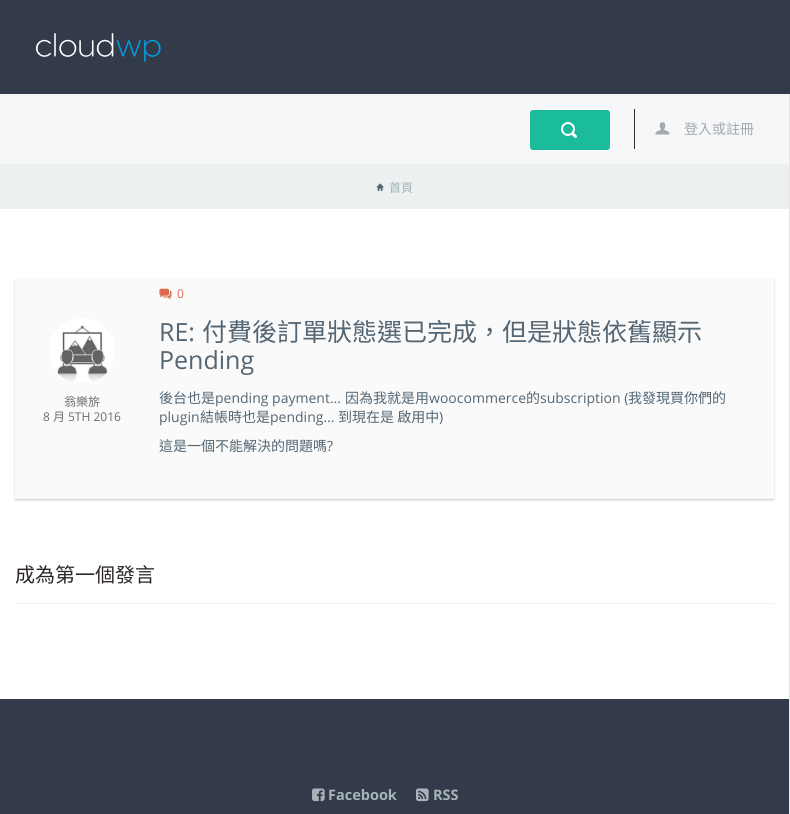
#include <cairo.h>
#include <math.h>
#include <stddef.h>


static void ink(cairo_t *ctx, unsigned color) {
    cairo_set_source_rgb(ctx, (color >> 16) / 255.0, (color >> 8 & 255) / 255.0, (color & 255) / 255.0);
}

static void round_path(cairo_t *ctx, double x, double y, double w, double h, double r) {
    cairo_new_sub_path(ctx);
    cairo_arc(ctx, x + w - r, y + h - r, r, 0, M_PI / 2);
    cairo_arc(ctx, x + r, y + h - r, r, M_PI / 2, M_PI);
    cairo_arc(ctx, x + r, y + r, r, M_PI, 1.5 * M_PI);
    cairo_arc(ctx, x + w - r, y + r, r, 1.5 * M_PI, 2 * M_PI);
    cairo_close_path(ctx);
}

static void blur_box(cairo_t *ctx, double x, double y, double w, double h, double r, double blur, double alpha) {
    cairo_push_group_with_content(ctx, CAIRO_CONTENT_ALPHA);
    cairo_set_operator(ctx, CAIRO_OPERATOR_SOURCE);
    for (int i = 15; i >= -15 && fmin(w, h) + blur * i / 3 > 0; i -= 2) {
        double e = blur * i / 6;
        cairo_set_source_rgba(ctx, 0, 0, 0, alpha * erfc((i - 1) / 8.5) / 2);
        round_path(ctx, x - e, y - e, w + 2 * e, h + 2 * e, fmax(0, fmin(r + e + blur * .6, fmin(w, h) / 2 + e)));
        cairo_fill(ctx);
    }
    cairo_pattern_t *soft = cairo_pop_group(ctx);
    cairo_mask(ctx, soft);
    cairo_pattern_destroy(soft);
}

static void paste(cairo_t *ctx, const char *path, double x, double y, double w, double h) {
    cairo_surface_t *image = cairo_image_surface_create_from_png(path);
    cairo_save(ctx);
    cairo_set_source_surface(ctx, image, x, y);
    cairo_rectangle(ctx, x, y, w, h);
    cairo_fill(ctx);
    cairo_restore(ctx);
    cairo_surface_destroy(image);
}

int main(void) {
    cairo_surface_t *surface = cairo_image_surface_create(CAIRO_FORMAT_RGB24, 790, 814);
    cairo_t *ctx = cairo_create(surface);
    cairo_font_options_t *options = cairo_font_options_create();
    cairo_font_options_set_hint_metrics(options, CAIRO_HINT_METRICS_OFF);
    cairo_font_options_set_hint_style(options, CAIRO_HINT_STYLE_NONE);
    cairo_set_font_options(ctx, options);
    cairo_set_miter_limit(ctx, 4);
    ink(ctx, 0xFFFFFF);
    cairo_paint(ctx);
    ink(ctx, 0x333A49);
    cairo_rectangle(ctx, 0, 0, 790, 94);
    cairo_fill(ctx);
    paste(ctx, "media/1.png", 35, 33, 126, 29);
    ink(ctx, 0xE5E5E5);
    cairo_rectangle(ctx, 789, 94, 1, 720);
    cairo_fill(ctx);
    ink(ctx, 0xF6F7F8);
    cairo_rectangle(ctx, 0, 94, 789, 70);
    cairo_fill(ctx);
    ink(ctx, 0x1ABC9C);
    round_path(ctx, 530, 110, 80, 40, 3);
    cairo_fill(ctx);
    paste(ctx, "media/2.png", 561, 122, 16, 16);
    ink(ctx, 0x2C2E2E);
    cairo_rectangle(ctx, 634, 109, 1, 40);
    cairo_fill(ctx);
    paste(ctx, "media/3.png", 655, 122, 15, 13);
    cairo_select_font_face(ctx, "Noto Sans CJK TC", CAIRO_FONT_SLANT_NORMAL, CAIRO_FONT_WEIGHT_NORMAL);
    cairo_set_font_size(ctx, 14);
    ink(ctx, 0xA5A9AC);
    cairo_move_to(ctx, 684, 134);
    cairo_show_text(ctx, "登入或註冊");
    ink(ctx, 0xECF0F1);
    cairo_rectangle(ctx, 0, 164, 789, 45);
    cairo_fill(ctx);
    paste(ctx, "media/4.png", 376, 183, 8, 8);
    cairo_set_font_size(ctx, 12);
    ink(ctx, 0xA6B4B5);
    cairo_move_to(ctx, 389, 192);
    cairo_show_text(ctx, "首頁");
    ink(ctx, 0xCCCCCC);
    blur_box(ctx, 15, 280, 759, 220, 0, 1, 1);
    ink(ctx, 0xFAFAFA);
    cairo_rectangle(ctx, 15, 279, 759, 219);
    cairo_fill(ctx);
    ink(ctx, 0xF2F2F2);
    cairo_rectangle(ctx, 15, 498, 759, 1);
    cairo_fill(ctx);
    paste(ctx, "media/5.png", 49, 318, 66, 64);
    ink(ctx, 0x6B6B6B);
    cairo_move_to(ctx, 64, 406);
    cairo_show_text(ctx, "翁樂旂");
    cairo_select_font_face(ctx, "Open Sans", CAIRO_FONT_SLANT_NORMAL, CAIRO_FONT_WEIGHT_NORMAL);
    cairo_move_to(ctx, 43, 421);
    cairo_show_text(ctx, "8");
    cairo_select_font_face(ctx, "Noto Sans CJK TC", CAIRO_FONT_SLANT_NORMAL, CAIRO_FONT_WEIGHT_NORMAL);
    cairo_move_to(ctx, 53, 421);
    cairo_show_text(ctx, "月");
    cairo_select_font_face(ctx, "Open Sans", CAIRO_FONT_SLANT_NORMAL, CAIRO_FONT_WEIGHT_NORMAL);
    cairo_move_to(ctx, 68, 421);
    cairo_show_text(ctx, "5TH 2016");
    paste(ctx, "media/6.png", 159, 288, 13, 11);
    ink(ctx, 0xDD6951);
    cairo_move_to(ctx, 177, 298);
    cairo_show_text(ctx, "0");
    cairo_set_font_size(ctx, 25);
    ink(ctx, 0x546673);
    cairo_move_to(ctx, 159, 341);
    cairo_show_text(ctx, "RE:");
    cairo_select_font_face(ctx, "Noto Sans CJK TC", CAIRO_FONT_SLANT_NORMAL, CAIRO_FONT_WEIGHT_NORMAL);
    cairo_move_to(ctx, 202, 341);
    cairo_show_text(ctx, "付費後訂單狀態選已完成，但是狀態依舊顯示");
    cairo_select_font_face(ctx, "Open Sans", CAIRO_FONT_SLANT_NORMAL, CAIRO_FONT_WEIGHT_NORMAL);
    cairo_move_to(ctx, 159, 369);
    cairo_show_text(ctx, "Pending");
    cairo_select_font_face(ctx, "Noto Sans CJK TC", CAIRO_FONT_SLANT_NORMAL, CAIRO_FONT_WEIGHT_NORMAL);
    cairo_set_font_size(ctx, 14);
    cairo_move_to(ctx, 159, 403);
    cairo_show_text(ctx, "後台也是");
    cairo_select_font_face(ctx, "Open Sans", CAIRO_FONT_SLANT_NORMAL, CAIRO_FONT_WEIGHT_NORMAL);
    cairo_move_to(ctx, 215, 403);
    cairo_show_text(ctx, "pending payment…");
    cairo_select_font_face(ctx, "Noto Sans CJK TC", CAIRO_FONT_SLANT_NORMAL, CAIRO_FONT_WEIGHT_NORMAL);
    cairo_move_to(ctx, 345, 403);
    cairo_show_text(ctx, "因為我就是用");
    cairo_select_font_face(ctx, "Open Sans", CAIRO_FONT_SLANT_NORMAL, CAIRO_FONT_WEIGHT_NORMAL);
    cairo_move_to(ctx, 429, 403);
    cairo_show_text(ctx, "woocommerce");
    cairo_select_font_face(ctx, "Noto Sans CJK TC", CAIRO_FONT_SLANT_NORMAL, CAIRO_FONT_WEIGHT_NORMAL);
    cairo_move_to(ctx, 526, 403);
    cairo_show_text(ctx, "的");
    cairo_select_font_face(ctx, "Open Sans", CAIRO_FONT_SLANT_NORMAL, CAIRO_FONT_WEIGHT_NORMAL);
    cairo_move_to(ctx, 540, 403);
    cairo_show_text(ctx, "subscription (");
    cairo_select_font_face(ctx, "Noto Sans CJK TC", CAIRO_FONT_SLANT_NORMAL, CAIRO_FONT_WEIGHT_NORMAL);
    cairo_move_to(ctx, 628, 403);
    cairo_show_text(ctx, "我發現買你們的");
    cairo_select_font_face(ctx, "Open Sans", CAIRO_FONT_SLANT_NORMAL, CAIRO_FONT_WEIGHT_NORMAL);
    cairo_move_to(ctx, 159, 422);
    cairo_show_text(ctx, "plugin");
    cairo_select_font_face(ctx, "Noto Sans CJK TC", CAIRO_FONT_SLANT_NORMAL, CAIRO_FONT_WEIGHT_NORMAL);
    cairo_move_to(ctx, 200, 422);
    cairo_show_text(ctx, "結帳時也是");
    cairo_select_font_face(ctx, "Open Sans", CAIRO_FONT_SLANT_NORMAL, CAIRO_FONT_WEIGHT_NORMAL);
    cairo_move_to(ctx, 270, 422);
    cairo_show_text(ctx, "pending…");
    cairo_select_font_face(ctx, "Noto Sans CJK TC", CAIRO_FONT_SLANT_NORMAL, CAIRO_FONT_WEIGHT_NORMAL);
    cairo_move_to(ctx, 338, 422);
    cairo_show_text(ctx, "到現在是 啟用中");
    cairo_select_font_face(ctx, "Open Sans", CAIRO_FONT_SLANT_NORMAL, CAIRO_FONT_WEIGHT_NORMAL);
    cairo_move_to(ctx, 439, 422);
    cairo_show_text(ctx, ")");
    cairo_select_font_face(ctx, "Noto Sans CJK TC", CAIRO_FONT_SLANT_NORMAL, CAIRO_FONT_WEIGHT_NORMAL);
    cairo_move_to(ctx, 159, 451);
    cairo_show_text(ctx, "這是一個不能解決的問題嗎");
    cairo_select_font_face(ctx, "Open Sans", CAIRO_FONT_SLANT_NORMAL, CAIRO_FONT_WEIGHT_NORMAL);
    cairo_move_to(ctx, 327, 451);
    cairo_show_text(ctx, "?");
    ink(ctx, 0xF2F2F2);
    cairo_rectangle(ctx, 15, 603, 759, 1);
    cairo_fill(ctx);
    cairo_select_font_face(ctx, "Noto Sans CJK TC", CAIRO_FONT_SLANT_NORMAL, CAIRO_FONT_WEIGHT_NORMAL);
    cairo_set_font_size(ctx, 20);
    ink(ctx, 0x2B2624);
    cairo_move_to(ctx, 15, 582);
    cairo_show_text(ctx, "成為第一個發言");
    ink(ctx, 0x333A49);
    cairo_rectangle(ctx, 0, 699, 789, 115);
    cairo_fill(ctx);
    paste(ctx, "media/7.png", 312, 788, 13, 14);
    cairo_select_font_face(ctx, "Open Sans", CAIRO_FONT_SLANT_NORMAL, CAIRO_FONT_WEIGHT_BOLD);
    cairo_set_font_size(ctx, 14.5);
    ink(ctx, 0xA6B4B5);
    cairo_move_to(ctx, 328, 800);
    cairo_show_text(ctx, "Facebook");
    paste(ctx, "media/8.png", 416, 788, 13, 14);
    cairo_move_to(ctx, 433, 800);
    cairo_show_text(ctx, "RSS");
    cairo_surface_write_to_png(surface, "image.png");
    cairo_font_options_destroy(options);
    cairo_destroy(ctx);
    cairo_surface_destroy(surface);
    return 0;
}
